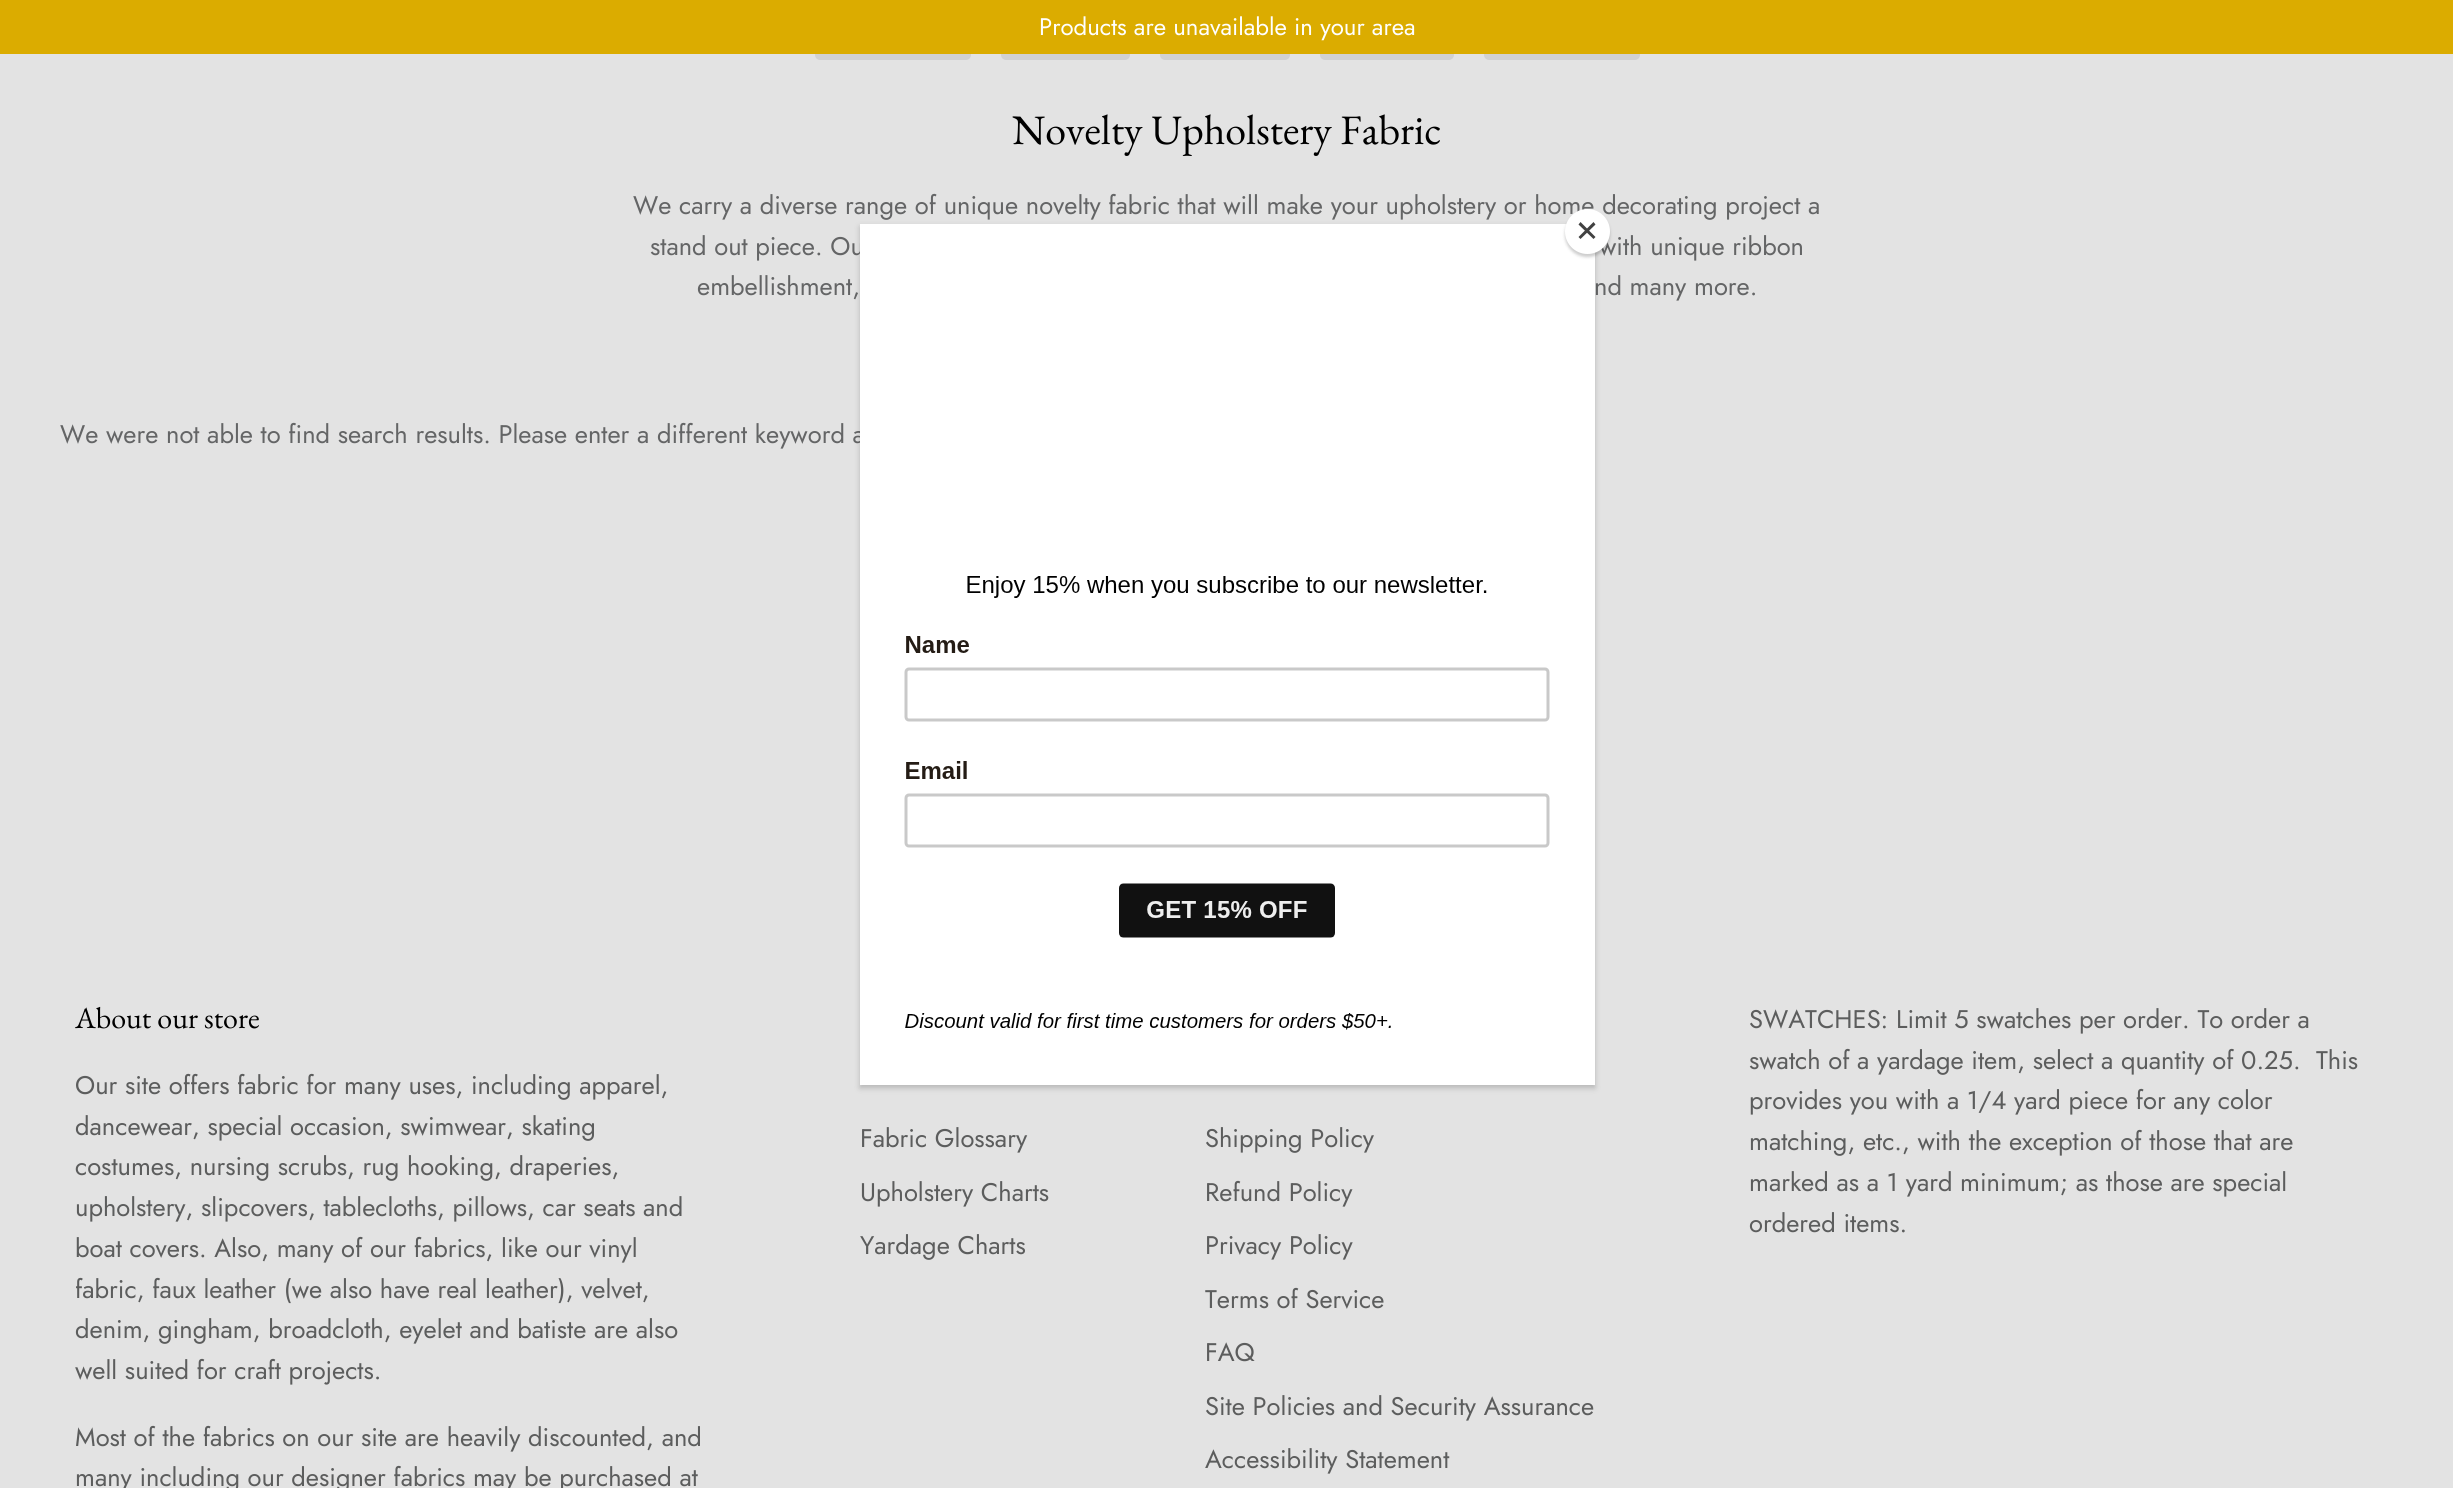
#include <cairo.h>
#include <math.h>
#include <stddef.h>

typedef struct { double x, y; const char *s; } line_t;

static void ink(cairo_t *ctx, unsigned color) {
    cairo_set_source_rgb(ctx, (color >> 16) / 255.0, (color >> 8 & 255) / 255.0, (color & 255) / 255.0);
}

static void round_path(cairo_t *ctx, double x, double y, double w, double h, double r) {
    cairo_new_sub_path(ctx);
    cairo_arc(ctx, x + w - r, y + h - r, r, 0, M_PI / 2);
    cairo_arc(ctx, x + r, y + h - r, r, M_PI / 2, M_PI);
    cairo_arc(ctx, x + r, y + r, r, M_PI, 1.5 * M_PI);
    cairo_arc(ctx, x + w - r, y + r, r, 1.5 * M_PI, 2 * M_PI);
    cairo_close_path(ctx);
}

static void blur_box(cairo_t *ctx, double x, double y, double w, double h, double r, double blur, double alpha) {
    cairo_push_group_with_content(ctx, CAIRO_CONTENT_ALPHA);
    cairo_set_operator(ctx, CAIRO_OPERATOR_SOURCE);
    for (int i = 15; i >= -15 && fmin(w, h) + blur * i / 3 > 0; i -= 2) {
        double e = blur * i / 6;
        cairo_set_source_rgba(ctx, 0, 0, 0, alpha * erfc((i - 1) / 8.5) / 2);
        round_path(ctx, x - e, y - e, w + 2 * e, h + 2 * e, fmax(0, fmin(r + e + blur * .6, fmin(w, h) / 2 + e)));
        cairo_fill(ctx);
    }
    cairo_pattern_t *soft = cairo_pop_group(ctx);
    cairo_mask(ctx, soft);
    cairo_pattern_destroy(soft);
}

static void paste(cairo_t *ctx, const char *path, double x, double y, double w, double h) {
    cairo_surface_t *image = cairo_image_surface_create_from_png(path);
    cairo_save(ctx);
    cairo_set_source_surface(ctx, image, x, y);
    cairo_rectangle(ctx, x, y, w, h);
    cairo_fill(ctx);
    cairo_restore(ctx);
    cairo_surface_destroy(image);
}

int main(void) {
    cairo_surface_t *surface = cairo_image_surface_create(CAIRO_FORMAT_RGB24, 2453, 1488);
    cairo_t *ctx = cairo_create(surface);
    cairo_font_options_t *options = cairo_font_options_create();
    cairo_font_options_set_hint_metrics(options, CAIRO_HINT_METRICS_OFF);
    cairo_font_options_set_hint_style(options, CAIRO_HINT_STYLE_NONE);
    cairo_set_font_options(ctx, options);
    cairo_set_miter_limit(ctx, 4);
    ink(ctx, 0xE3E3E3);
    cairo_paint(ctx);
    ink(ctx, 0xD1D1D1);
    round_path(ctx, 816, -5, 154, 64, 4);
    cairo_fill_preserve(ctx);
    cairo_stroke(ctx);
    round_path(ctx, 1002, -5, 127, 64, 4);
    cairo_fill_preserve(ctx);
    cairo_stroke(ctx);
    round_path(ctx, 1161, -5, 128, 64, 4);
    cairo_fill_preserve(ctx);
    cairo_stroke(ctx);
    round_path(ctx, 1321, -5, 132, 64, 4);
    cairo_fill_preserve(ctx);
    cairo_stroke(ctx);
    round_path(ctx, 1485, -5, 154, 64, 4);
    cairo_fill_preserve(ctx);
    cairo_stroke(ctx);
    ink(ctx, 0xDBAC00);
    cairo_rectangle(ctx, 0, 0, 2453, 54);
    cairo_fill(ctx);
    cairo_select_font_face(ctx, "Jost", CAIRO_FONT_SLANT_NORMAL, CAIRO_FONT_WEIGHT_NORMAL);
    cairo_set_font_size(ctx, 24);
    ink(ctx, 0xFFFFFF);
    cairo_move_to(ctx, 1039, 35);
    cairo_show_text(ctx, "Products are unavailable in your area");
    cairo_select_font_face(ctx, "EB Garamond", CAIRO_FONT_SLANT_NORMAL, CAIRO_FONT_WEIGHT_NORMAL);
    cairo_set_font_size(ctx, 42);
    ink(ctx, 0x000000);
    cairo_move_to(ctx, 1012, 144);
    cairo_show_text(ctx, "Novelty Upholstery Fabric");
    cairo_select_font_face(ctx, "Jost", CAIRO_FONT_SLANT_NORMAL, CAIRO_FONT_WEIGHT_NORMAL);
    cairo_set_font_size(ctx, 25.5);
    ink(ctx, 0x646566);
    {
        static const line_t items[] = {
            {633, 214, "We carry a diverse range of unique novelty fabric that will make your upholstery or home decorating project a"},
            {650, 255, "stand out piece. Ou"},
            {1599, 255, "with unique ribbon"},
            {697, 295, "embellishment,"},
            {1594, 295, "nd many more."},
            {60, 443, "We were not able to find search results. Please enter a different keyword a"},
        };
        for (size_t i = 0; i < sizeof items / sizeof *items; i++) {
            cairo_move_to(ctx, items[i].x, items[i].y);
            cairo_show_text(ctx, items[i].s);
        }
    }
    ink(ctx, 0x000000);
    blur_box(ctx, 860, 227, 735, 861, 0, 3, 0.2);
    paste(ctx, "media/1.png", 860, 224, 735, 861);
    blur_box(ctx, 1565, 212, 45, 45, 22.5, 1.5, 0.2);
    ink(ctx, 0xFFFFFF);
    cairo_arc(ctx, 1587.5, 231.5, 22.5, 0, 2 * M_PI);
    cairo_fill(ctx);
    ink(ctx, 0x414141);
    cairo_new_path(ctx);
    cairo_move_to(ctx, 1593.5, 222);
    cairo_line_to(ctx, 1595.5, 224.5);
    cairo_line_to(ctx, 1580.5, 239);
    cairo_line_to(ctx, 1578.5, 237);
    cairo_close_path(ctx);
    cairo_fill(ctx);
    cairo_new_path(ctx);
    cairo_move_to(ctx, 1578.5, 224.5);
    cairo_line_to(ctx, 1580.5, 222);
    cairo_line_to(ctx, 1595.5, 237);
    cairo_line_to(ctx, 1593.5, 239);
    cairo_close_path(ctx);
    cairo_fill(ctx);
    cairo_select_font_face(ctx, "EB Garamond", CAIRO_FONT_SLANT_NORMAL, CAIRO_FONT_WEIGHT_NORMAL);
    cairo_set_font_size(ctx, 30);
    ink(ctx, 0x000000);
    cairo_move_to(ctx, 75, 1028);
    cairo_show_text(ctx, "About our store");
    cairo_select_font_face(ctx, "Jost", CAIRO_FONT_SLANT_NORMAL, CAIRO_FONT_WEIGHT_NORMAL);
    cairo_set_font_size(ctx, 25.5);
    ink(ctx, 0x5C5D5D);
    {
        static const line_t items[] = {
            {75, 1094, "Our site offers fabric for many uses, including apparel,"},
            {75, 1135, "dancewear, special occasion, swimwear, skating"},
            {75, 1175, "costumes, nursing scrubs, rug hooking, draperies,"},
            {75, 1216, "upholstery, slipcovers, tablecloths, pillows, car seats and"},
            {75, 1257, "boat covers. Also, many of our fabrics, like our vinyl"},
            {75, 1298, "fabric, faux leather (we also have real leather), velvet,"},
            {75, 1338, "denim, gingham, broadcloth, eyelet and batiste are also"},
            {75, 1379, "well suited for craft projects."},
            {75, 1446, "Most of the fabrics on our site are heavily discounted, and"},
            {75, 1486, "many including our designer fabrics may be purchased at"},
            {860, 1147, "Fabric Glossary"},
            {860, 1201, "Upholstery Charts"},
            {860, 1254, "Yardage Charts"},
            {1205, 1147, "Shipping Policy"},
            {1205, 1201, "Refund Policy"},
            {1205, 1254, "Privacy Policy"},
            {1205, 1308, "Terms of Service"},
            {1205, 1361, "FAQ"},
            {1205, 1415, "Site Policies and Security Assurance"},
            {1205, 1468, "Accessibility Statement"},
            {1749, 1028, "SWATCHES: Limit 5 swatches per order. To order a"},
            {1749, 1069, "swatch of a yardage item, select a quantity of 0.25.  This"},
            {1749, 1109, "provides you with a 1/4 yard piece for any color"},
            {1749, 1150, "matching, etc., with the exception of those that are"},
            {1749, 1191, "marked as a 1 yard minimum; as those are special"},
            {1749, 1232, "ordered items."},
        };
        for (size_t i = 0; i < sizeof items / sizeof *items; i++) {
            cairo_move_to(ctx, items[i].x, items[i].y);
            cairo_show_text(ctx, items[i].s);
        }
    }
    cairo_surface_write_to_png(surface, "image.png");
    cairo_font_options_destroy(options);
    cairo_destroy(ctx);
    cairo_surface_destroy(surface);
    return 0;
}
